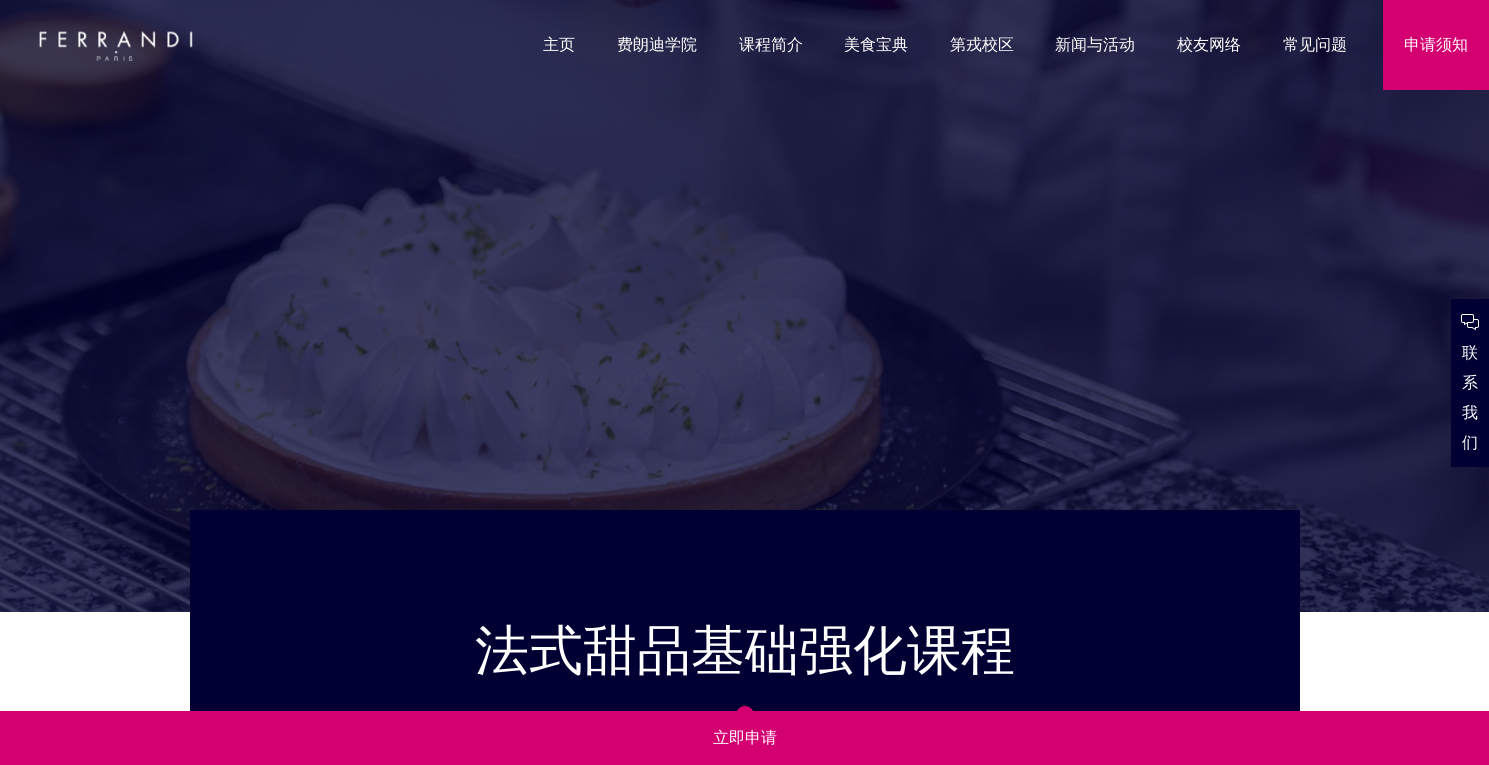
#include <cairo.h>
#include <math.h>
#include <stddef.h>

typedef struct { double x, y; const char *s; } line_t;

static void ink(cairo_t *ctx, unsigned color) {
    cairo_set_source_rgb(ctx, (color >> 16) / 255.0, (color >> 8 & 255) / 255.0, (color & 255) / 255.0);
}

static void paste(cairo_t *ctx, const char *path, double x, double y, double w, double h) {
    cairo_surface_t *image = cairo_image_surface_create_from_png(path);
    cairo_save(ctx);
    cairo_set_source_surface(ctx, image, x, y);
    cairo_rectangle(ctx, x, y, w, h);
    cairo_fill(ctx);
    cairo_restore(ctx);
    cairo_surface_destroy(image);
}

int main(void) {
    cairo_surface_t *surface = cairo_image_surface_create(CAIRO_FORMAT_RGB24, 1489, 765);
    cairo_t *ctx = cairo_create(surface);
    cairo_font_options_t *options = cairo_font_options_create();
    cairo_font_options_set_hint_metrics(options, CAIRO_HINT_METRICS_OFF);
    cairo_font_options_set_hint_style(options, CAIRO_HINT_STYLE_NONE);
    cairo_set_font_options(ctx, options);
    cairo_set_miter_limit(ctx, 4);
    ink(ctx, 0xFFFFFF);
    cairo_paint(ctx);
    paste(ctx, "media/3.png", 0, 0, 1489, 612);
    paste(ctx, "media/1.png", 39, 31, 154, 30);
    cairo_select_font_face(ctx, "WenQuanYi Zen Hei Medium", CAIRO_FONT_SLANT_NORMAL, CAIRO_FONT_WEIGHT_NORMAL);
    cairo_set_font_size(ctx, 16);
    ink(ctx, 0xFFFFFF);
    {
        static const line_t items[] = {
            {543, 50, "主页"},
            {617, 50, "费朗迪学院"},
            {739, 50, "课程简介"},
            {844, 50, "美食宝典"},
            {950, 50, "第戎校区"},
            {1055, 50, "新闻与活动"},
            {1177, 50, "校友网络"},
            {1283, 50, "常见问题"},
        };
        for (size_t i = 0; i < sizeof items / sizeof *items; i++) {
            cairo_move_to(ctx, items[i].x, items[i].y);
            cairo_show_text(ctx, items[i].s);
        }
    }
    ink(ctx, 0xD40072);
    cairo_rectangle(ctx, 1383, 0, 106, 90);
    cairo_fill(ctx);
    ink(ctx, 0xFFFFFF);
    cairo_move_to(ctx, 1404, 50);
    cairo_show_text(ctx, "申请须知");
    ink(ctx, 0x000032);
    cairo_rectangle(ctx, 1451, 299, 38, 168);
    cairo_fill(ctx);
    paste(ctx, "media/2.png", 1461, 314, 18, 16);
    ink(ctx, 0xFFFFFF);
    {
        static const line_t items[] = {
            {1462, 358, "联"},
            {1462, 388, "系"},
            {1462, 418, "我"},
            {1462, 448, "们"},
        };
        for (size_t i = 0; i < sizeof items / sizeof *items; i++) {
            cairo_move_to(ctx, items[i].x, items[i].y);
            cairo_show_text(ctx, items[i].s);
        }
    }
    ink(ctx, 0x000032);
    cairo_rectangle(ctx, 190, 510, 1110, 201);
    cairo_fill(ctx);
    cairo_set_font_size(ctx, 54);
    ink(ctx, 0xFFFFFF);
    cairo_move_to(ctx, 475, 669);
    cairo_show_text(ctx, "法式甜品基础强化课程");
    ink(ctx, 0xD40072);
    cairo_new_path(ctx);
    cairo_arc(ctx, 745, 715, 9, 0, 2 * M_PI);
    cairo_fill(ctx);
    cairo_rectangle(ctx, 0, 711, 1489, 54);
    cairo_fill(ctx);
    cairo_set_font_size(ctx, 16);
    ink(ctx, 0xFFFFFF);
    cairo_move_to(ctx, 713, 743);
    cairo_show_text(ctx, "立即申请");
    cairo_surface_write_to_png(surface, "image.png");
    cairo_font_options_destroy(options);
    cairo_destroy(ctx);
    cairo_surface_destroy(surface);
    return 0;
}
